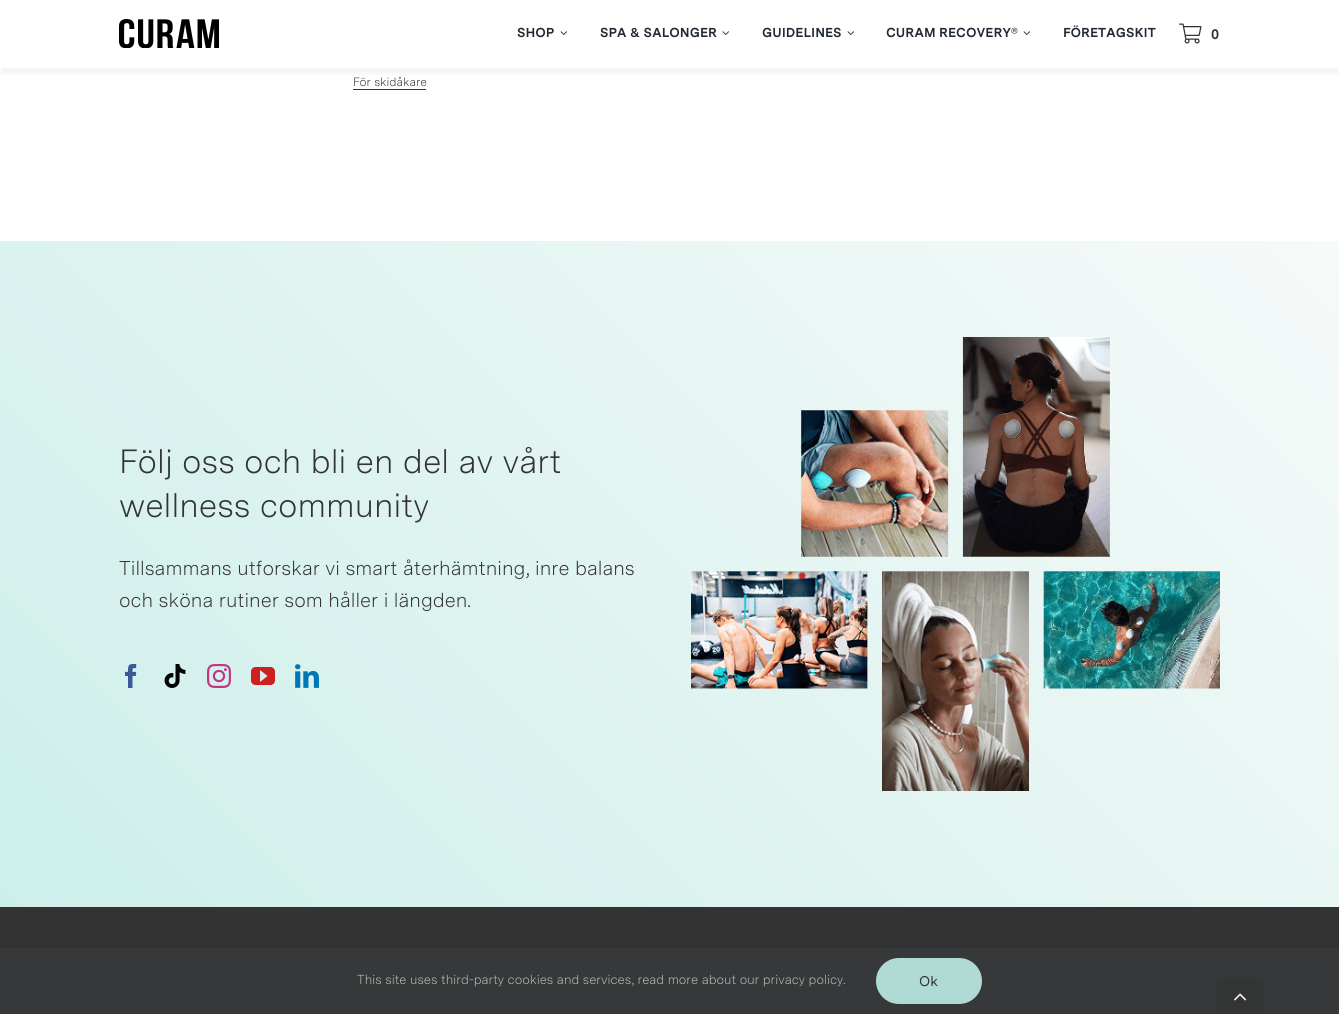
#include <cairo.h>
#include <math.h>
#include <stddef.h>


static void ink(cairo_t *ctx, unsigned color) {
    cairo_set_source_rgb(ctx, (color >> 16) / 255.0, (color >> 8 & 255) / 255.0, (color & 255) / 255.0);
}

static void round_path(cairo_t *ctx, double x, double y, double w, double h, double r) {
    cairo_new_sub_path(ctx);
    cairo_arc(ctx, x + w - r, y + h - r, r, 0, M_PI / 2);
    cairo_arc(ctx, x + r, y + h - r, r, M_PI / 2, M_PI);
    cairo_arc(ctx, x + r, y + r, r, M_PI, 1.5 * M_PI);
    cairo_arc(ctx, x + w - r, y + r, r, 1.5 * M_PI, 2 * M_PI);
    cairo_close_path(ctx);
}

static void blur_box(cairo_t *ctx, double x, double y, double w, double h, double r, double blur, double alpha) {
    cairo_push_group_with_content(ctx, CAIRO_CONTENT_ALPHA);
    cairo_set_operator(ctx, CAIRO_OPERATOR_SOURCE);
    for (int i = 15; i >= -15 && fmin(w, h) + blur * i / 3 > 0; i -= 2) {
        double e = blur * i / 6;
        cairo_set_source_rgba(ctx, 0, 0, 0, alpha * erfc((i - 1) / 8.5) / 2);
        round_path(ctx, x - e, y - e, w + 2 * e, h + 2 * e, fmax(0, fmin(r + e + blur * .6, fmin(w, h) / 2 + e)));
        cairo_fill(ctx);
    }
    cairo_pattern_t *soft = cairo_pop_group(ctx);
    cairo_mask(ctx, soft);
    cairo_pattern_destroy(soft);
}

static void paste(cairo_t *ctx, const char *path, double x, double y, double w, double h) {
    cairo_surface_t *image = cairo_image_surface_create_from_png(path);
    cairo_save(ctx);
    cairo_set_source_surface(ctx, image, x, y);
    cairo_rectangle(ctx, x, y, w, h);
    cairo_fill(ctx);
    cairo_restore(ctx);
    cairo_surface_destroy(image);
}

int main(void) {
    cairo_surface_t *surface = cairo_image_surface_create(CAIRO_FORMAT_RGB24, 1339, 1014);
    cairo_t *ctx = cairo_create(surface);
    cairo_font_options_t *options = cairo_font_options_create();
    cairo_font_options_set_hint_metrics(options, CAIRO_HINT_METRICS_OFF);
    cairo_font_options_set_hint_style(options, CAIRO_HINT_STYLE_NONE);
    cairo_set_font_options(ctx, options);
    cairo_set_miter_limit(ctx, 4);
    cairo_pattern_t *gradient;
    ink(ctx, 0xFFFFFF);
    cairo_paint(ctx);
    ink(ctx, 0x333333);
    blur_box(ctx, 1, 6, 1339, 68, 0, 1.5, 0.05);
    ink(ctx, 0xFFFFFF);
    cairo_rectangle(ctx, 0, 5, 1339, 63);
    cairo_fill(ctx);
    paste(ctx, "media/1.png", 119, 19, 100, 29);
    cairo_select_font_face(ctx, "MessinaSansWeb", CAIRO_FONT_SLANT_NORMAL, CAIRO_FONT_WEIGHT_BOLD);
    cairo_set_font_size(ctx, 13);
    ink(ctx, 0x212934);
    cairo_move_to(ctx, 517, 37);
    cairo_show_text(ctx, "SHOP");
    paste(ctx, "media/2.png", 560, 31, 7, 4);
    cairo_move_to(ctx, 600, 37);
    cairo_show_text(ctx, "SPA & SALONGER");
    paste(ctx, "media/2.png", 722, 31, 7, 4);
    cairo_move_to(ctx, 762, 37);
    cairo_show_text(ctx, "GUIDELINES");
    paste(ctx, "media/2.png", 847, 31, 7, 4);
    cairo_move_to(ctx, 886, 37);
    cairo_show_text(ctx, "CURAM RECOVERY®");
    paste(ctx, "media/2.png", 1023, 31, 7, 4);
    cairo_move_to(ctx, 1063, 37);
    cairo_show_text(ctx, "FÖRETAGSKIT");
    paste(ctx, "media/3.png", 1179, 23, 23, 21);
    cairo_set_font_size(ctx, 14);
    ink(ctx, 0x333333);
    cairo_move_to(ctx, 1211, 39);
    cairo_show_text(ctx, "0");
    cairo_select_font_face(ctx, "MessinaSansWeb Light", CAIRO_FONT_SLANT_NORMAL, CAIRO_FONT_WEIGHT_NORMAL);
    cairo_set_font_size(ctx, 12);
    cairo_move_to(ctx, 353, 86);
    cairo_show_text(ctx, "För skidåkare");
    cairo_rectangle(ctx, 353, 89, 73, 1);
    cairo_fill(ctx);
    gradient = cairo_pattern_create_linear(168, 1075, 1171, 73);
    cairo_pattern_add_color_stop_rgba(gradient, 0, 0.804, 0.937, 0.918, 1);
    cairo_pattern_add_color_stop_rgba(gradient, 1, 0.965, 0.98, 0.976, 1);
    cairo_set_source(ctx, gradient);
    cairo_pattern_destroy(gradient);
    cairo_rectangle(ctx, 0, 241, 1339, 666);
    cairo_fill(ctx);
    cairo_set_font_size(ctx, 33.6);
    ink(ctx, 0x333333);
    cairo_move_to(ctx, 119, 473);
    cairo_show_text(ctx, "Följ oss och bli en del av vårt");
    cairo_move_to(ctx, 119, 517);
    cairo_show_text(ctx, "wellness community");
    cairo_set_font_size(ctx, 20);
    cairo_move_to(ctx, 119, 575);
    cairo_show_text(ctx, "Tillsammans utforskar vi smart återhämtning, inre balans");
    cairo_move_to(ctx, 119, 607);
    cairo_show_text(ctx, "och sköna rutiner som håller i längden.");
    paste(ctx, "media/4.png", 125, 664, 12, 24);
    paste(ctx, "media/5.png", 164, 664, 22, 24);
    paste(ctx, "media/6.png", 207, 664, 24, 24);
    paste(ctx, "media/7.png", 251, 667, 24, 18);
    paste(ctx, "media/8.png", 295, 664, 24, 24);
    paste(ctx, "media/9.png", 691, 337, 529, 454);
    cairo_rectangle(ctx, 0, 907, 1339, 41);
    cairo_fill(ctx);
    ink(ctx, 0x363839);
    cairo_rectangle(ctx, 0, 948, 1339, 66);
    cairo_fill(ctx);
    cairo_set_font_size(ctx, 13);
    ink(ctx, 0xBFBFBF);
    cairo_move_to(ctx, 357, 984);
    cairo_show_text(ctx, "This site uses third-party cookies and services, read more about our privacy policy.");
    ink(ctx, 0xB0DBD4);
    round_path(ctx, 876, 958, 106, 46, 23);
    cairo_fill(ctx);
    cairo_select_font_face(ctx, "MessinaSansWeb", CAIRO_FONT_SLANT_NORMAL, CAIRO_FONT_WEIGHT_NORMAL);
    cairo_set_font_size(ctx, 14);
    ink(ctx, 0x333333);
    cairo_move_to(ctx, 919, 986);
    cairo_show_text(ctx, "Ok");
    ink(ctx, 0x333434);
    cairo_new_path(ctx);
    cairo_move_to(ctx, 1220, 979);
    cairo_line_to(ctx, 1260, 979);
    cairo_curve_to(ctx, 1262, 979, 1264, 981, 1264, 983);
    cairo_line_to(ctx, 1264, 1014);
    cairo_line_to(ctx, 1216, 1014);
    cairo_line_to(ctx, 1216, 983);
    cairo_curve_to(ctx, 1216, 981, 1218, 979, 1220, 979);
    cairo_close_path(ctx);
    cairo_fill(ctx);
    paste(ctx, "media/10.png", 1234, 993, 13, 8);
    cairo_surface_write_to_png(surface, "image.png");
    cairo_font_options_destroy(options);
    cairo_destroy(ctx);
    cairo_surface_destroy(surface);
    return 0;
}
